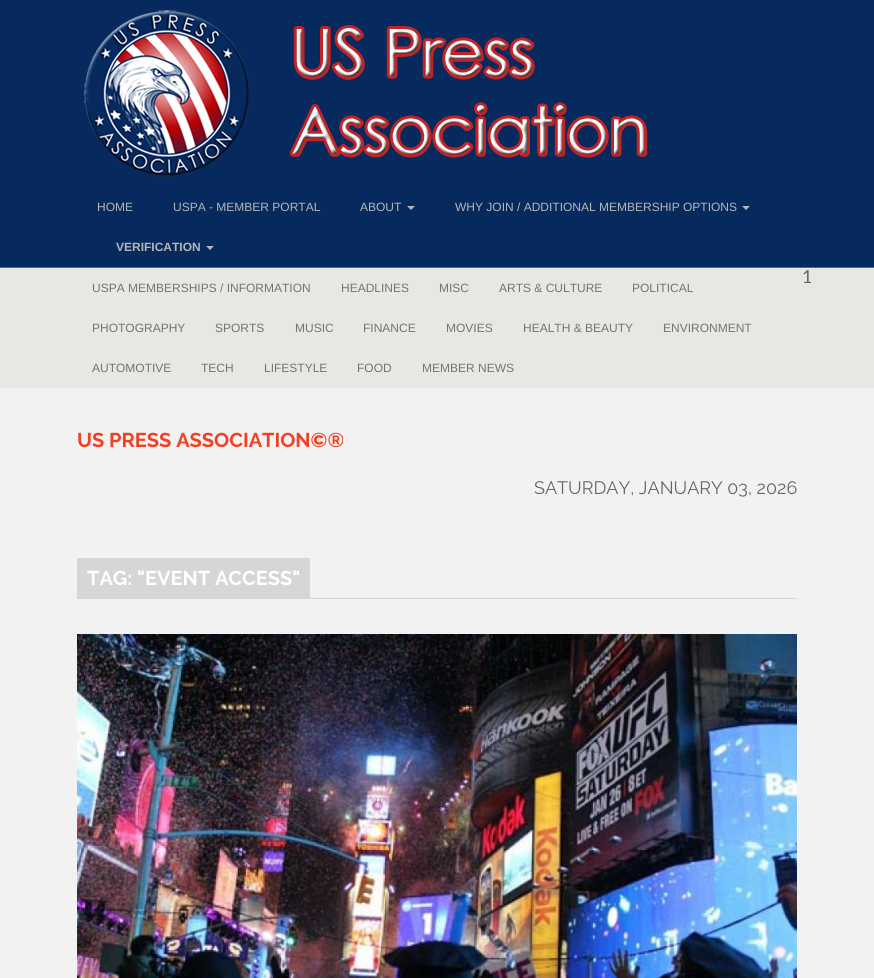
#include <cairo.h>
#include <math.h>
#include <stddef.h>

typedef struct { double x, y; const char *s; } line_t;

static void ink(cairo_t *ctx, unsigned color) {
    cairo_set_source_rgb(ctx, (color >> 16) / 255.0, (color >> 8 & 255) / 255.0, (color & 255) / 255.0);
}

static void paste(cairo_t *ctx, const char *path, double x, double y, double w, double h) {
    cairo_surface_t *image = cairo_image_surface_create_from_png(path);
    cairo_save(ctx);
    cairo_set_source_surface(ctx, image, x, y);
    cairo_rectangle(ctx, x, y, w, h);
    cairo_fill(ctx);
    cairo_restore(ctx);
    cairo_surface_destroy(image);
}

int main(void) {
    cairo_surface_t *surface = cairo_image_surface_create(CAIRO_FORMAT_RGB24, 874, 978);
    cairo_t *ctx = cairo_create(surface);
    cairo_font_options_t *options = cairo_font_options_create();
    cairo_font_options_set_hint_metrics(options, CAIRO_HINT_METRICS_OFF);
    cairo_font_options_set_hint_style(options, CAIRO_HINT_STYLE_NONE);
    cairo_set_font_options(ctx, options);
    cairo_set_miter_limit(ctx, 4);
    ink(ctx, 0xF2F2F2);
    cairo_paint(ctx);
    ink(ctx, 0x062A5E);
    cairo_rectangle(ctx, 0, 0, 874, 267);
    cairo_fill(ctx);
    ink(ctx, 0x666666);
    cairo_rectangle(ctx, 0, 267, 874, 1);
    cairo_fill(ctx);
    paste(ctx, "media/1.png", 84, 10, 564, 167);
    cairo_select_font_face(ctx, "Liberation Sans", CAIRO_FONT_SLANT_NORMAL, CAIRO_FONT_WEIGHT_NORMAL);
    cairo_set_font_size(ctx, 12);
    ink(ctx, 0xB6B6B6);
    {
        static const line_t items[] = {
            {97, 211, "HOME"},
            {173, 211, "USPA - MEMBER PORTAL"},
            {360, 211, "ABOUT"},
        };
        for (size_t i = 0; i < sizeof items / sizeof *items; i++) {
            cairo_move_to(ctx, items[i].x, items[i].y);
            cairo_show_text(ctx, items[i].s);
        }
    }
    cairo_new_path(ctx);
    cairo_move_to(ctx, 407, 206);
    cairo_line_to(ctx, 415, 206);
    cairo_line_to(ctx, 411, 210);
    cairo_close_path(ctx);
    cairo_fill(ctx);
    cairo_move_to(ctx, 455, 211);
    cairo_show_text(ctx, "WHY JOIN / ADDITIONAL MEMBERSHIP OPTIONS");
    cairo_new_path(ctx);
    cairo_move_to(ctx, 742, 206);
    cairo_line_to(ctx, 750, 206);
    cairo_line_to(ctx, 746, 210);
    cairo_close_path(ctx);
    cairo_fill(ctx);
    cairo_select_font_face(ctx, "Liberation Sans", CAIRO_FONT_SLANT_NORMAL, CAIRO_FONT_WEIGHT_BOLD);
    cairo_move_to(ctx, 116, 251);
    cairo_show_text(ctx, "VERIFICATION");
    cairo_new_path(ctx);
    cairo_move_to(ctx, 206, 246);
    cairo_line_to(ctx, 214, 246);
    cairo_line_to(ctx, 210, 250);
    cairo_close_path(ctx);
    cairo_fill(ctx);
    ink(ctx, 0xE7E8E1);
    cairo_rectangle(ctx, 0, 268, 874, 120);
    cairo_fill(ctx);
    cairo_select_font_face(ctx, "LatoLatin", CAIRO_FONT_SLANT_NORMAL, CAIRO_FONT_WEIGHT_NORMAL);
    cairo_set_font_size(ctx, 18);
    ink(ctx, 0x666666);
    cairo_move_to(ctx, 802, 283);
    cairo_show_text(ctx, "1");
    cairo_select_font_face(ctx, "Liberation Sans", CAIRO_FONT_SLANT_NORMAL, CAIRO_FONT_WEIGHT_NORMAL);
    cairo_set_font_size(ctx, 12);
    ink(ctx, 0x747471);
    {
        static const line_t items[] = {
            {92, 292, "USPA MEMBERSHIPS / INFORMATION"},
            {341, 292, "HEADLINES"},
            {439, 292, "MISC"},
            {499, 292, "ARTS & CULTURE"},
            {632, 292, "POLITICAL"},
            {92, 332, "PHOTOGRAPHY"},
            {215, 332, "SPORTS"},
            {295, 332, "MUSIC"},
            {363, 332, "FINANCE"},
            {446, 332, "MOVIES"},
            {523, 332, "HEALTH & BEAUTY"},
            {663, 332, "ENVIRONMENT"},
            {92, 372, "AUTOMOTIVE"},
            {201, 372, "TECH"},
            {264, 372, "LIFESTYLE"},
            {357, 372, "FOOD"},
            {422, 372, "MEMBER NEWS"},
        };
        for (size_t i = 0; i < sizeof items / sizeof *items; i++) {
            cairo_move_to(ctx, items[i].x, items[i].y);
            cairo_show_text(ctx, items[i].s);
        }
    }
    cairo_select_font_face(ctx, "Raleway", CAIRO_FONT_SLANT_NORMAL, CAIRO_FONT_WEIGHT_BOLD);
    cairo_set_font_size(ctx, 20);
    ink(ctx, 0xF24024);
    cairo_move_to(ctx, 77, 447);
    cairo_show_text(ctx, "US PRESS ASSOCIATION©®");
    cairo_select_font_face(ctx, "Raleway", CAIRO_FONT_SLANT_NORMAL, CAIRO_FONT_WEIGHT_NORMAL);
    cairo_set_font_size(ctx, 18);
    ink(ctx, 0x666666);
    cairo_move_to(ctx, 534, 494);
    cairo_show_text(ctx, "SATURDAY, JANUARY 03, 2026");
    ink(ctx, 0xD6D6D6);
    cairo_rectangle(ctx, 77, 598, 720, 1);
    cairo_fill(ctx);
    cairo_rectangle(ctx, 77, 558, 233, 40);
    cairo_fill(ctx);
    cairo_select_font_face(ctx, "Raleway", CAIRO_FONT_SLANT_NORMAL, CAIRO_FONT_WEIGHT_BOLD);
    cairo_set_font_size(ctx, 20);
    ink(ctx, 0xFFFFFF);
    cairo_move_to(ctx, 87, 585);
    cairo_show_text(ctx, "TAG: \"EVENT ACCESS\"");
    paste(ctx, "media/2.png", 77, 634, 720, 344);
    cairo_surface_write_to_png(surface, "image.png");
    cairo_font_options_destroy(options);
    cairo_destroy(ctx);
    cairo_surface_destroy(surface);
    return 0;
}
